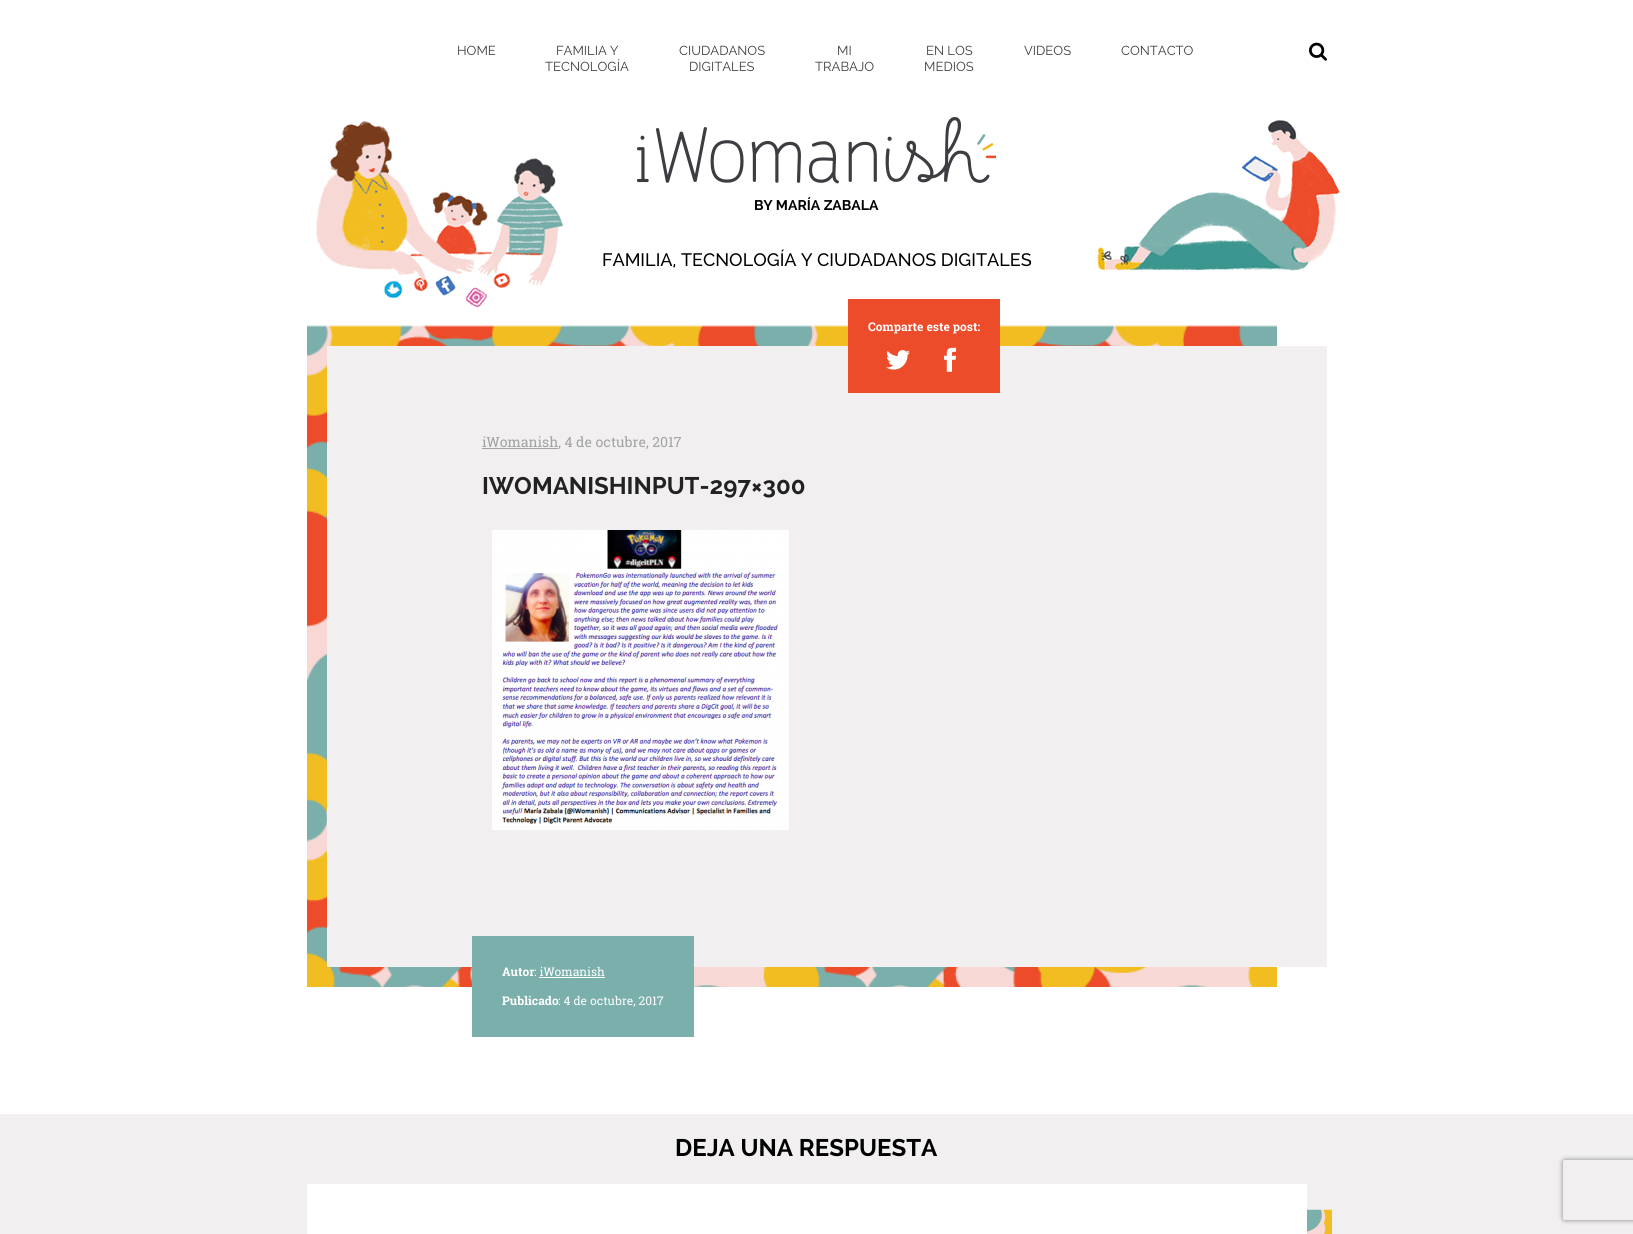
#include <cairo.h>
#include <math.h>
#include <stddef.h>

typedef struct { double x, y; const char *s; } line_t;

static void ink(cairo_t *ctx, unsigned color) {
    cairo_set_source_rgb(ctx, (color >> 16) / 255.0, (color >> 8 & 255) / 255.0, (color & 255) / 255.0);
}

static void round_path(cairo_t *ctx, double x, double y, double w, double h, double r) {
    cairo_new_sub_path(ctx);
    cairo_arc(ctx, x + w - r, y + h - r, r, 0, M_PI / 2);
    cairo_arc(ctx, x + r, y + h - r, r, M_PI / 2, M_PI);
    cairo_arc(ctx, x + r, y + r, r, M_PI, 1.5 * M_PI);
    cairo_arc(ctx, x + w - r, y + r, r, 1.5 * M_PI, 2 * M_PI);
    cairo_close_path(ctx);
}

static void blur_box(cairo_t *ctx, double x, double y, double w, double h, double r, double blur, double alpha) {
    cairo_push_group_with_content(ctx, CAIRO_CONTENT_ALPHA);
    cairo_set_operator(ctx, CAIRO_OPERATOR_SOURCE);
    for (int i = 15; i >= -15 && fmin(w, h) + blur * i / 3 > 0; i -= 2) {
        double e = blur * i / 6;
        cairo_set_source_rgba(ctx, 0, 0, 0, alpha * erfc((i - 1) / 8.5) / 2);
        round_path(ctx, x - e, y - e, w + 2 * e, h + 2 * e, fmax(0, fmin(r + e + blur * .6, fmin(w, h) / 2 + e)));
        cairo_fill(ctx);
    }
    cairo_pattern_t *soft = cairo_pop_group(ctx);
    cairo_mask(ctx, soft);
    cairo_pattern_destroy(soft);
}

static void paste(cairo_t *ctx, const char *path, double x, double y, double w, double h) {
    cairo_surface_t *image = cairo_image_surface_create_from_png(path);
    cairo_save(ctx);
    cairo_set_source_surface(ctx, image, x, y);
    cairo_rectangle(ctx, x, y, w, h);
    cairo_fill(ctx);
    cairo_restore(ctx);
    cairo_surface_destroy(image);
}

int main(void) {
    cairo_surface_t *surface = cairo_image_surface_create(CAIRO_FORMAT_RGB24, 1633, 1234);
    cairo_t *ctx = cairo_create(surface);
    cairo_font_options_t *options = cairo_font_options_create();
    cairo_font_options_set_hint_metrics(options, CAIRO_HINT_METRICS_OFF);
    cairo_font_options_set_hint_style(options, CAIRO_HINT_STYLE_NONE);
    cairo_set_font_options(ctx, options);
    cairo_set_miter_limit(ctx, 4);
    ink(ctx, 0xFFFFFF);
    cairo_paint(ctx);
    cairo_select_font_face(ctx, "Raleway", CAIRO_FONT_SLANT_NORMAL, CAIRO_FONT_WEIGHT_NORMAL);
    cairo_set_font_size(ctx, 13);
    ink(ctx, 0x3C3C41);
    {
        static const line_t items[] = {
            {457, 55, "HOME"},
            {556, 55, "FAMILIA Y"},
            {545, 71, "TECNOLOGÍA"},
            {679, 55, "CIUDADANOS"},
            {689, 71, "DIGITALES"},
            {837, 55, "MI"},
            {815, 71, "TRABAJO"},
            {926, 55, "EN LOS"},
            {924, 71, "MEDIOS"},
            {1024, 55, "VIDEOS"},
            {1121, 55, "CONTACTO"},
        };
        for (size_t i = 0; i < sizeof items / sizeof *items; i++) {
            cairo_move_to(ctx, items[i].x, items[i].y);
            cairo_show_text(ctx, items[i].s);
        }
    }
    paste(ctx, "media/1.png", 1309, 42, 18, 19);
    paste(ctx, "media/2.png", 316, 121, 247, 187);
    paste(ctx, "media/3.png", 637, 117, 359, 67);
    cairo_select_font_face(ctx, "Raleway", CAIRO_FONT_SLANT_NORMAL, CAIRO_FONT_WEIGHT_BOLD);
    cairo_set_font_size(ctx, 14);
    ink(ctx, 0x000000);
    cairo_move_to(ctx, 754, 210);
    cairo_show_text(ctx, "BY MARÍA ZABALA");
    cairo_select_font_face(ctx, "Raleway Medium", CAIRO_FONT_SLANT_NORMAL, CAIRO_FONT_WEIGHT_NORMAL);
    cairo_set_font_size(ctx, 18);
    cairo_move_to(ctx, 602, 266);
    cairo_show_text(ctx, "FAMILIA, TECNOLOGÍA Y CIUDADANOS DIGITALES");
    paste(ctx, "media/4.png", 1097, 120, 243, 151);
    paste(ctx, "media/7.png", 307, 325, 970, 662);
    ink(ctx, 0xF1EFF0);
    cairo_rectangle(ctx, 327, 346, 1000, 621);
    cairo_fill(ctx);
    ink(ctx, 0xED4C2B);
    cairo_rectangle(ctx, 848, 299, 152, 94);
    cairo_fill(ctx);
    cairo_select_font_face(ctx, "Roboto Slab", CAIRO_FONT_SLANT_NORMAL, CAIRO_FONT_WEIGHT_BOLD);
    cairo_set_font_size(ctx, 12);
    ink(ctx, 0xFFFFFF);
    cairo_move_to(ctx, 868, 331);
    cairo_show_text(ctx, "Comparte este post:");
    paste(ctx, "media/5.png", 886, 350, 24, 20);
    paste(ctx, "media/6.png", 944, 347, 12, 25);
    ink(ctx, 0xA2A2A2);
    cairo_rectangle(ctx, 482, 448, 76, 1);
    cairo_fill(ctx);
    cairo_select_font_face(ctx, "Roboto Slab", CAIRO_FONT_SLANT_NORMAL, CAIRO_FONT_WEIGHT_NORMAL);
    cairo_set_font_size(ctx, 14);
    cairo_move_to(ctx, 482, 447);
    cairo_show_text(ctx, "iWomanish, 4 de octubre, 2017");
    cairo_select_font_face(ctx, "Raleway", CAIRO_FONT_SLANT_NORMAL, CAIRO_FONT_WEIGHT_BOLD);
    cairo_set_font_size(ctx, 24);
    ink(ctx, 0x222222);
    cairo_move_to(ctx, 482, 494);
    cairo_show_text(ctx, "IWOMANISHINPUT-297×300");
    paste(ctx, "media/8.png", 492, 530, 297, 300);
    ink(ctx, 0x7AAFAB);
    cairo_rectangle(ctx, 472, 936, 222, 101);
    cairo_fill(ctx);
    cairo_select_font_face(ctx, "Roboto Slab", CAIRO_FONT_SLANT_NORMAL, CAIRO_FONT_WEIGHT_BOLD);
    cairo_set_font_size(ctx, 12);
    ink(ctx, 0xFFFFFF);
    cairo_move_to(ctx, 502, 976);
    cairo_show_text(ctx, "Autor");
    cairo_select_font_face(ctx, "Roboto Slab", CAIRO_FONT_SLANT_NORMAL, CAIRO_FONT_WEIGHT_NORMAL);
    cairo_move_to(ctx, 534, 976);
    cairo_show_text(ctx, ": iWomanish");
    cairo_rectangle(ctx, 539, 977, 66, 1);
    cairo_fill(ctx);
    cairo_select_font_face(ctx, "Roboto Slab", CAIRO_FONT_SLANT_NORMAL, CAIRO_FONT_WEIGHT_BOLD);
    cairo_move_to(ctx, 502, 1005);
    cairo_show_text(ctx, "Publicado");
    cairo_select_font_face(ctx, "Roboto Slab", CAIRO_FONT_SLANT_NORMAL, CAIRO_FONT_WEIGHT_NORMAL);
    cairo_move_to(ctx, 558, 1005);
    cairo_show_text(ctx, ": 4 de octubre, 2017");
    ink(ctx, 0xF1EFF0);
    cairo_rectangle(ctx, 0, 1114, 1633, 120);
    cairo_fill(ctx);
    cairo_select_font_face(ctx, "Raleway", CAIRO_FONT_SLANT_NORMAL, CAIRO_FONT_WEIGHT_BOLD);
    cairo_set_font_size(ctx, 24);
    ink(ctx, 0x000000);
    cairo_move_to(ctx, 675, 1156);
    cairo_show_text(ctx, "DEJA UNA RESPUESTA");
    ink(ctx, 0xFFFFFF);
    cairo_rectangle(ctx, 307, 1184, 1000, 50);
    cairo_fill(ctx);
    paste(ctx, "media/9.png", 1307, 1209, 25, 25);
    cairo_save(ctx);
    cairo_set_fill_rule(ctx, CAIRO_FILL_RULE_EVEN_ODD);
    cairo_new_path(ctx);
    cairo_move_to(ctx, 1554, 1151);
    cairo_line_to(ctx, 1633, 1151);
    cairo_line_to(ctx, 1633, 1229);
    cairo_line_to(ctx, 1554, 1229);
    cairo_close_path(ctx);
    cairo_move_to(ctx, 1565, 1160);
    cairo_line_to(ctx, 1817, 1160);
    cairo_curve_to(ctx, 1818, 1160, 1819, 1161, 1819, 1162);
    cairo_line_to(ctx, 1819, 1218);
    cairo_curve_to(ctx, 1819, 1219, 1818, 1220, 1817, 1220);
    cairo_line_to(ctx, 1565, 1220);
    cairo_curve_to(ctx, 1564, 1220, 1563, 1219, 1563, 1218);
    cairo_line_to(ctx, 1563, 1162);
    cairo_curve_to(ctx, 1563, 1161, 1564, 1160, 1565, 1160);
    cairo_close_path(ctx);
    cairo_clip(ctx);
    ink(ctx, 0x808080);
    blur_box(ctx, 1563, 1160, 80, 60, 2, 2.5, 1);
    cairo_restore(ctx);
    cairo_surface_write_to_png(surface, "image.png");
    cairo_font_options_destroy(options);
    cairo_destroy(ctx);
    cairo_surface_destroy(surface);
    return 0;
}
